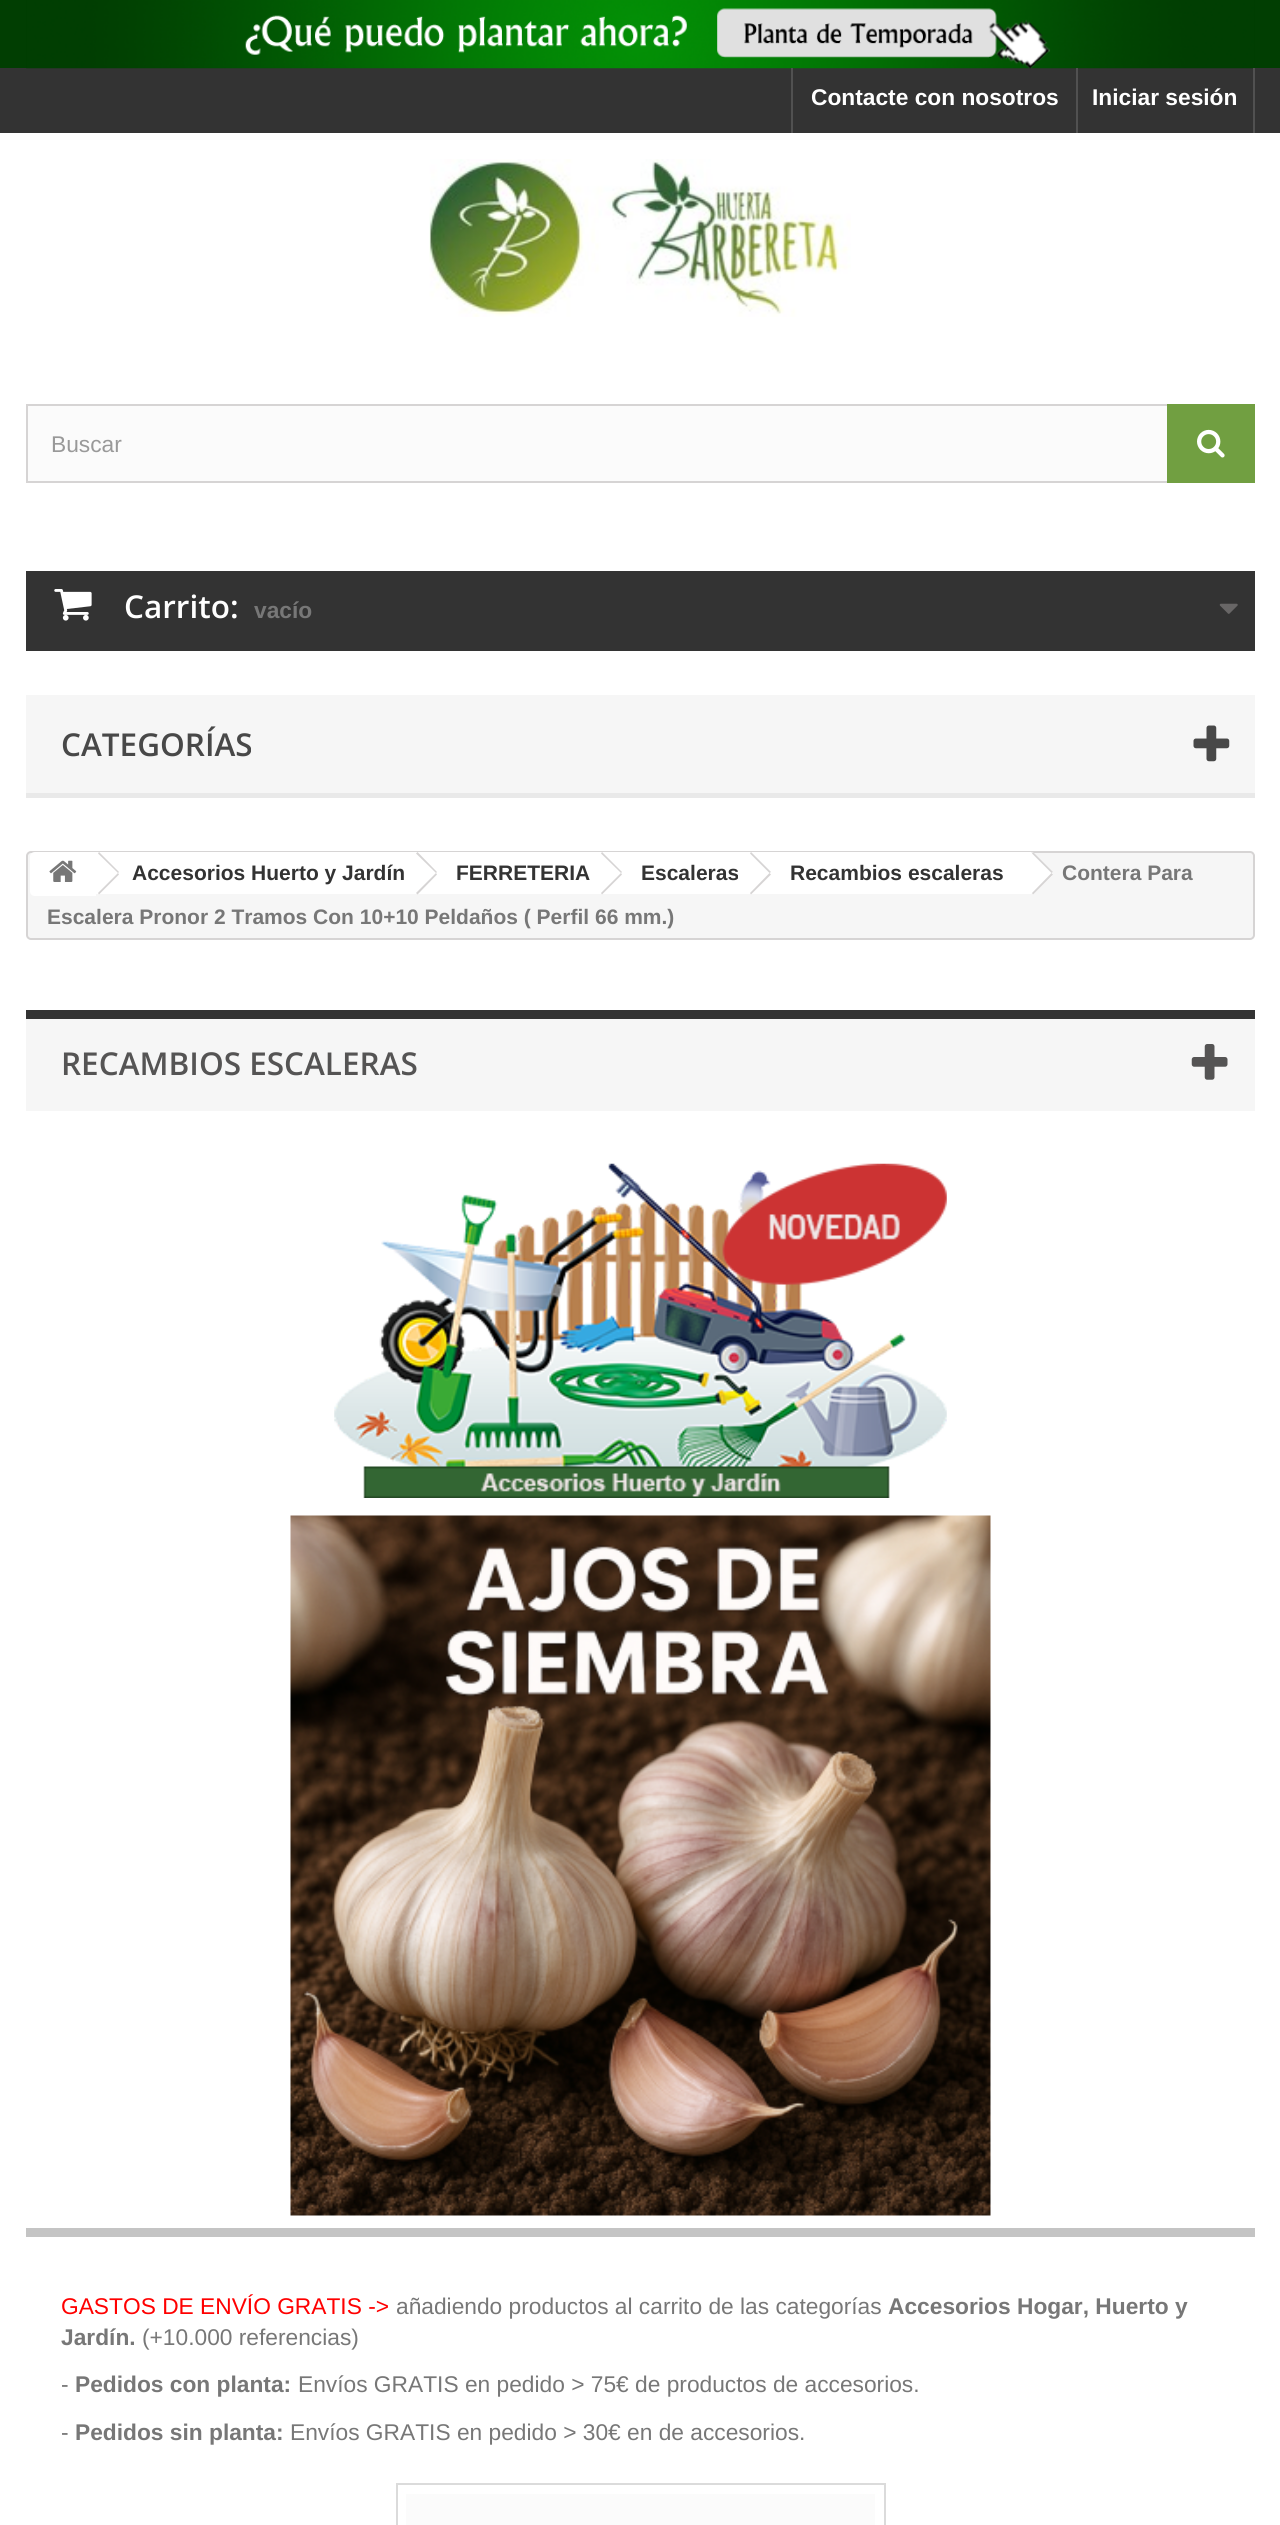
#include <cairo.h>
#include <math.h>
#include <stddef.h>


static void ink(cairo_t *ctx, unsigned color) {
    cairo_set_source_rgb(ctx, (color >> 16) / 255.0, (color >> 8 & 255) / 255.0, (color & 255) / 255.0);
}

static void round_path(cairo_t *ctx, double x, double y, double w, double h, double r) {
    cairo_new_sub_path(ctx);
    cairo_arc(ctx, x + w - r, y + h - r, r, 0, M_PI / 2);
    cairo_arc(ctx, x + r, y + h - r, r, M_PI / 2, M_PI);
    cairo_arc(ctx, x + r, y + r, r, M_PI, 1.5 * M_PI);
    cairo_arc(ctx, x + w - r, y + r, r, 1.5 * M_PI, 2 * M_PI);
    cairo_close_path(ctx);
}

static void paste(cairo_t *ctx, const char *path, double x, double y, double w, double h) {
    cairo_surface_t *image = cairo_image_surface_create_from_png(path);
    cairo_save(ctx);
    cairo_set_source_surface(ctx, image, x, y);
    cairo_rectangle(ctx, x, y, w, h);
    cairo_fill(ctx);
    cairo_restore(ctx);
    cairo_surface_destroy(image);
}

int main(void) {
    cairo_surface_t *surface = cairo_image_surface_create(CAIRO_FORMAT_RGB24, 1280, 2525);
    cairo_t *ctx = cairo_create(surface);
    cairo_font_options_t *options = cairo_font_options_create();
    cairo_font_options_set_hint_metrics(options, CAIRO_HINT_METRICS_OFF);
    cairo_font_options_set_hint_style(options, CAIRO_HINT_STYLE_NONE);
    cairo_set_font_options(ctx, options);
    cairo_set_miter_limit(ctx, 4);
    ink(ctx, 0xFFFFFF);
    cairo_paint(ctx);
    ink(ctx, 0x013E02);
    cairo_rectangle(ctx, 0, 0, 1280, 68);
    cairo_fill(ctx);
    ink(ctx, 0x333333);
    cairo_rectangle(ctx, 0, 68, 1280, 65);
    cairo_fill(ctx);
    paste(ctx, "media/1.png", 26, 0, 1229, 69);
    ink(ctx, 0x515151);
    cairo_rectangle(ctx, 791, 68, 2, 65);
    cairo_fill(ctx);
    cairo_select_font_face(ctx, "Liberation Sans", CAIRO_FONT_SLANT_NORMAL, CAIRO_FONT_WEIGHT_BOLD);
    cairo_set_font_size(ctx, 22.75);
    ink(ctx, 0xFFFFFF);
    cairo_move_to(ctx, 811, 105);
    cairo_show_text(ctx, "Contacte con nosotros");
    ink(ctx, 0x515151);
    cairo_rectangle(ctx, 1253, 68, 2, 65);
    cairo_fill(ctx);
    cairo_rectangle(ctx, 1076, 68, 2, 65);
    cairo_fill(ctx);
    ink(ctx, 0xFFFFFF);
    cairo_move_to(ctx, 1092, 105);
    cairo_show_text(ctx, "Iniciar sesión");
    paste(ctx, "media/2.png", 429, 159, 422, 158);
    ink(ctx, 0xFBFBFB);
    cairo_rectangle(ctx, 28, 406, 1139, 75);
    cairo_fill(ctx);
    cairo_rectangle(ctx, 27, 405, 1227, 77);
    ink(ctx, 0xD6D4D4);
    cairo_stroke(ctx);
    cairo_select_font_face(ctx, "Liberation Sans", CAIRO_FONT_SLANT_NORMAL, CAIRO_FONT_WEIGHT_NORMAL);
    ink(ctx, 0x999999);
    cairo_move_to(ctx, 51, 452);
    cairo_show_text(ctx, "Buscar");
    ink(ctx, 0x719F41);
    cairo_rectangle(ctx, 1167, 404, 88, 79);
    cairo_fill(ctx);
    paste(ctx, "media/3.png", 1197, 429, 28, 29);
    ink(ctx, 0x333333);
    cairo_rectangle(ctx, 26, 571, 1229, 80);
    cairo_fill(ctx);
    paste(ctx, "media/4.png", 54, 589, 38, 32);
    cairo_select_font_face(ctx, "Open Sans SemiBold", CAIRO_FONT_SLANT_NORMAL, CAIRO_FONT_WEIGHT_NORMAL);
    cairo_set_font_size(ctx, 31.5);
    ink(ctx, 0xFFFFFF);
    cairo_move_to(ctx, 124, 618);
    cairo_show_text(ctx, "Carrito:");
    cairo_select_font_face(ctx, "Liberation Sans", CAIRO_FONT_SLANT_NORMAL, CAIRO_FONT_WEIGHT_BOLD);
    cairo_set_font_size(ctx, 22.75);
    ink(ctx, 0x777777);
    cairo_move_to(ctx, 254, 618);
    cairo_show_text(ctx, "vacío");
    paste(ctx, "media/5.png", 1219, 603, 19, 11);
    ink(ctx, 0xF6F6F6);
    cairo_rectangle(ctx, 26, 695, 1229, 98);
    cairo_fill(ctx);
    ink(ctx, 0xE9E9E9);
    cairo_rectangle(ctx, 26, 793, 1229, 5);
    cairo_fill(ctx);
    cairo_select_font_face(ctx, "Open Sans SemiBold", CAIRO_FONT_SLANT_NORMAL, CAIRO_FONT_WEIGHT_NORMAL);
    cairo_set_font_size(ctx, 31.5);
    ink(ctx, 0x484848);
    cairo_move_to(ctx, 61, 756);
    cairo_show_text(ctx, "CATEGORÍAS");
    paste(ctx, "media/6.png", 1193, 725, 37, 37);
    ink(ctx, 0xF6F6F6);
    round_path(ctx, 27, 852, 1227, 87, 4);
    cairo_fill_preserve(ctx);
    ink(ctx, 0xD6D4D4);
    cairo_stroke(ctx);
    ink(ctx, 0xFFFFFF);
    cairo_new_path(ctx);
    cairo_move_to(ctx, 35, 852);
    cairo_line_to(ctx, 96, 852);
    cairo_line_to(ctx, 96, 896);
    cairo_line_to(ctx, 35, 896);
    cairo_curve_to(ctx, 32, 896, 30, 894, 30, 891);
    cairo_line_to(ctx, 30, 857);
    cairo_curve_to(ctx, 30, 854, 32, 852, 35, 852);
    cairo_close_path(ctx);
    cairo_fill(ctx);
    paste(ctx, "media/7.png", 49, 860, 28, 22);
    cairo_rectangle(ctx, 96, 852, 322, 42);
    cairo_fill(ctx);
    ink(ctx, 0xD6D4D4);
    cairo_new_path(ctx);
    cairo_move_to(ctx, 99, 852);
    cairo_line_to(ctx, 119, 872);
    cairo_line_to(ctx, 118, 873);
    cairo_line_to(ctx, 98, 853.5);
    cairo_close_path(ctx);
    cairo_move_to(ctx, 118, 873);
    cairo_line_to(ctx, 119, 874.5);
    cairo_line_to(ctx, 99, 894.5);
    cairo_line_to(ctx, 98, 893);
    cairo_close_path(ctx);
    cairo_fill(ctx);
    cairo_select_font_face(ctx, "Liberation Sans", CAIRO_FONT_SLANT_NORMAL, CAIRO_FONT_WEIGHT_BOLD);
    cairo_set_font_size(ctx, 21);
    ink(ctx, 0x333333);
    cairo_move_to(ctx, 132, 880);
    cairo_show_text(ctx, "Accesorios Huerto y Jardín");
    ink(ctx, 0xFFFFFF);
    cairo_new_path(ctx);
    cairo_move_to(ctx, 436, 853);
    cairo_line_to(ctx, 453, 871);
    cairo_curve_to(ctx, 455, 872, 455, 874, 453, 876);
    cairo_line_to(ctx, 436, 893);
    cairo_curve_to(ctx, 435, 894, 432, 894, 431, 893);
    cairo_line_to(ctx, 414, 876);
    cairo_curve_to(ctx, 412, 874, 412, 872, 414, 871);
    cairo_line_to(ctx, 431, 853);
    cairo_curve_to(ctx, 432, 852, 435, 852, 436, 853);
    cairo_close_path(ctx);
    cairo_fill(ctx);
    cairo_rectangle(ctx, 418, 852, 184, 42);
    cairo_fill(ctx);
    ink(ctx, 0xD6D4D4);
    cairo_new_path(ctx);
    cairo_move_to(ctx, 417.5, 852);
    cairo_line_to(ctx, 437, 872);
    cairo_line_to(ctx, 436, 873);
    cairo_line_to(ctx, 416, 853.5);
    cairo_close_path(ctx);
    cairo_move_to(ctx, 436, 873);
    cairo_line_to(ctx, 437, 874.5);
    cairo_line_to(ctx, 417.5, 894.5);
    cairo_line_to(ctx, 416, 893);
    cairo_close_path(ctx);
    cairo_fill(ctx);
    ink(ctx, 0x333333);
    cairo_move_to(ctx, 456, 880);
    cairo_show_text(ctx, "FERRETERIA");
    ink(ctx, 0xFFFFFF);
    cairo_new_path(ctx);
    cairo_move_to(ctx, 621, 853);
    cairo_line_to(ctx, 638, 871);
    cairo_curve_to(ctx, 640, 872, 640, 874, 638, 876);
    cairo_line_to(ctx, 621, 893);
    cairo_curve_to(ctx, 620, 894, 617, 894, 616, 893);
    cairo_line_to(ctx, 599, 876);
    cairo_curve_to(ctx, 597, 874, 597, 872, 599, 871);
    cairo_line_to(ctx, 616, 853);
    cairo_curve_to(ctx, 617, 852, 620, 852, 621, 853);
    cairo_close_path(ctx);
    cairo_fill(ctx);
    cairo_rectangle(ctx, 602, 852, 149, 42);
    cairo_fill(ctx);
    ink(ctx, 0xD6D4D4);
    cairo_new_path(ctx);
    cairo_move_to(ctx, 602, 852);
    cairo_line_to(ctx, 622, 872);
    cairo_line_to(ctx, 621, 873);
    cairo_line_to(ctx, 601, 853.5);
    cairo_close_path(ctx);
    cairo_move_to(ctx, 621, 873);
    cairo_line_to(ctx, 622, 874.5);
    cairo_line_to(ctx, 602, 894.5);
    cairo_line_to(ctx, 601, 893);
    cairo_close_path(ctx);
    cairo_fill(ctx);
    ink(ctx, 0x333333);
    cairo_move_to(ctx, 641, 880);
    cairo_show_text(ctx, "Escaleras");
    ink(ctx, 0xFFFFFF);
    cairo_new_path(ctx);
    cairo_move_to(ctx, 770, 853);
    cairo_line_to(ctx, 787, 871);
    cairo_curve_to(ctx, 789, 872, 789, 874, 787, 876);
    cairo_line_to(ctx, 770, 893);
    cairo_curve_to(ctx, 768, 894, 766, 894, 765, 893);
    cairo_line_to(ctx, 748, 876);
    cairo_curve_to(ctx, 746, 874, 746, 872, 748, 871);
    cairo_line_to(ctx, 765, 853);
    cairo_curve_to(ctx, 766, 852, 768, 852, 770, 853);
    cairo_close_path(ctx);
    cairo_fill(ctx);
    cairo_rectangle(ctx, 751, 852, 280, 42);
    cairo_fill(ctx);
    ink(ctx, 0xD6D4D4);
    cairo_new_path(ctx);
    cairo_move_to(ctx, 751, 852);
    cairo_line_to(ctx, 771, 872);
    cairo_line_to(ctx, 769.5, 873);
    cairo_line_to(ctx, 750, 853.5);
    cairo_close_path(ctx);
    cairo_move_to(ctx, 769.5, 873);
    cairo_line_to(ctx, 771, 874.5);
    cairo_line_to(ctx, 751, 894.5);
    cairo_line_to(ctx, 750, 893);
    cairo_close_path(ctx);
    cairo_fill(ctx);
    ink(ctx, 0x333333);
    cairo_move_to(ctx, 790, 880);
    cairo_show_text(ctx, "Recambios escaleras");
    ink(ctx, 0xFFFFFF);
    cairo_new_path(ctx);
    cairo_move_to(ctx, 1034, 853);
    cairo_line_to(ctx, 1052, 871);
    cairo_curve_to(ctx, 1053, 872, 1053, 874, 1052, 876);
    cairo_line_to(ctx, 1034, 893);
    cairo_curve_to(ctx, 1033, 894, 1031, 894, 1029, 893);
    cairo_line_to(ctx, 1012, 876);
    cairo_curve_to(ctx, 1011, 874, 1011, 872, 1012, 871);
    cairo_line_to(ctx, 1029, 853);
    cairo_curve_to(ctx, 1031, 852, 1033, 852, 1034, 853);
    cairo_close_path(ctx);
    cairo_fill(ctx);
    ink(ctx, 0xD6D4D4);
    cairo_new_path(ctx);
    cairo_move_to(ctx, 1033, 852);
    cairo_line_to(ctx, 1053, 872);
    cairo_line_to(ctx, 1051.5, 873);
    cairo_line_to(ctx, 1032, 853.5);
    cairo_close_path(ctx);
    cairo_move_to(ctx, 1051.5, 873);
    cairo_line_to(ctx, 1053, 874.5);
    cairo_line_to(ctx, 1033, 894.5);
    cairo_line_to(ctx, 1032, 893);
    cairo_close_path(ctx);
    cairo_fill(ctx);
    ink(ctx, 0x777777);
    cairo_move_to(ctx, 1062, 880);
    cairo_show_text(ctx, "Contera Para");
    cairo_move_to(ctx, 47, 924);
    cairo_show_text(ctx, "Escalera Pronor 2 Tramos Con 10+10 Peldaños ( Perfil 66 mm.)");
    ink(ctx, 0xF6F6F6);
    cairo_rectangle(ctx, 26, 1019, 1229, 92);
    cairo_fill(ctx);
    ink(ctx, 0x333333);
    cairo_rectangle(ctx, 26, 1010, 1229, 9);
    cairo_fill(ctx);
    cairo_select_font_face(ctx, "Open Sans SemiBold", CAIRO_FONT_SLANT_NORMAL, CAIRO_FONT_WEIGHT_NORMAL);
    cairo_set_font_size(ctx, 31.5);
    ink(ctx, 0x555454);
    cairo_move_to(ctx, 61, 1075);
    cairo_show_text(ctx, "RECAMBIOS ESCALERAS");
    paste(ctx, "media/8.png", 1191, 1044, 37, 36);
    paste(ctx, "media/9.png", 334, 1163, 613, 335);
    paste(ctx, "media/10.png", 290, 1515, 701, 701);
    ink(ctx, 0xC4C4C4);
    cairo_rectangle(ctx, 26, 2228, 1229, 9);
    cairo_fill(ctx);
    cairo_select_font_face(ctx, "Liberation Sans", CAIRO_FONT_SLANT_NORMAL, CAIRO_FONT_WEIGHT_NORMAL);
    cairo_set_font_size(ctx, 22.75);
    ink(ctx, 0xFF0000);
    cairo_move_to(ctx, 61, 2314);
    cairo_show_text(ctx, "GASTOS DE ENVÍO GRATIS ->");
    ink(ctx, 0x777777);
    cairo_move_to(ctx, 396, 2314);
    cairo_show_text(ctx, "añadiendo productos al carrito de las categorías");
    cairo_select_font_face(ctx, "Liberation Sans", CAIRO_FONT_SLANT_NORMAL, CAIRO_FONT_WEIGHT_BOLD);
    cairo_move_to(ctx, 888, 2314);
    cairo_show_text(ctx, "Accesorios Hogar, Huerto y");
    cairo_move_to(ctx, 61, 2345);
    cairo_show_text(ctx, "Jardín.");
    cairo_select_font_face(ctx, "Liberation Sans", CAIRO_FONT_SLANT_NORMAL, CAIRO_FONT_WEIGHT_NORMAL);
    cairo_move_to(ctx, 142, 2345);
    cairo_show_text(ctx, "(+10.000 referencias)");
    cairo_move_to(ctx, 61, 2392);
    cairo_show_text(ctx, "-");
    cairo_select_font_face(ctx, "Liberation Sans", CAIRO_FONT_SLANT_NORMAL, CAIRO_FONT_WEIGHT_BOLD);
    cairo_move_to(ctx, 75, 2392);
    cairo_show_text(ctx, "Pedidos con planta:");
    cairo_select_font_face(ctx, "Liberation Sans", CAIRO_FONT_SLANT_NORMAL, CAIRO_FONT_WEIGHT_NORMAL);
    cairo_move_to(ctx, 298, 2392);
    cairo_show_text(ctx, "Envíos GRATIS en pedido > 75€ de productos de accesorios.");
    cairo_move_to(ctx, 61, 2440);
    cairo_show_text(ctx, "-");
    cairo_select_font_face(ctx, "Liberation Sans", CAIRO_FONT_SLANT_NORMAL, CAIRO_FONT_WEIGHT_BOLD);
    cairo_move_to(ctx, 75, 2440);
    cairo_show_text(ctx, "Pedidos sin planta:");
    cairo_select_font_face(ctx, "Liberation Sans", CAIRO_FONT_SLANT_NORMAL, CAIRO_FONT_WEIGHT_NORMAL);
    cairo_move_to(ctx, 290, 2440);
    cairo_show_text(ctx, "Envíos GRATIS en pedido > 30€ en de accesorios.");
    cairo_rectangle(ctx, 397, 2484, 488, 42);
    ink(ctx, 0xDBDBDB);
    cairo_stroke(ctx);
    ink(ctx, 0xFBFBFB);
    cairo_rectangle(ctx, 406, 2494, 469, 31);
    cairo_fill(ctx);
    cairo_surface_write_to_png(surface, "image.png");
    cairo_font_options_destroy(options);
    cairo_destroy(ctx);
    cairo_surface_destroy(surface);
    return 0;
}
